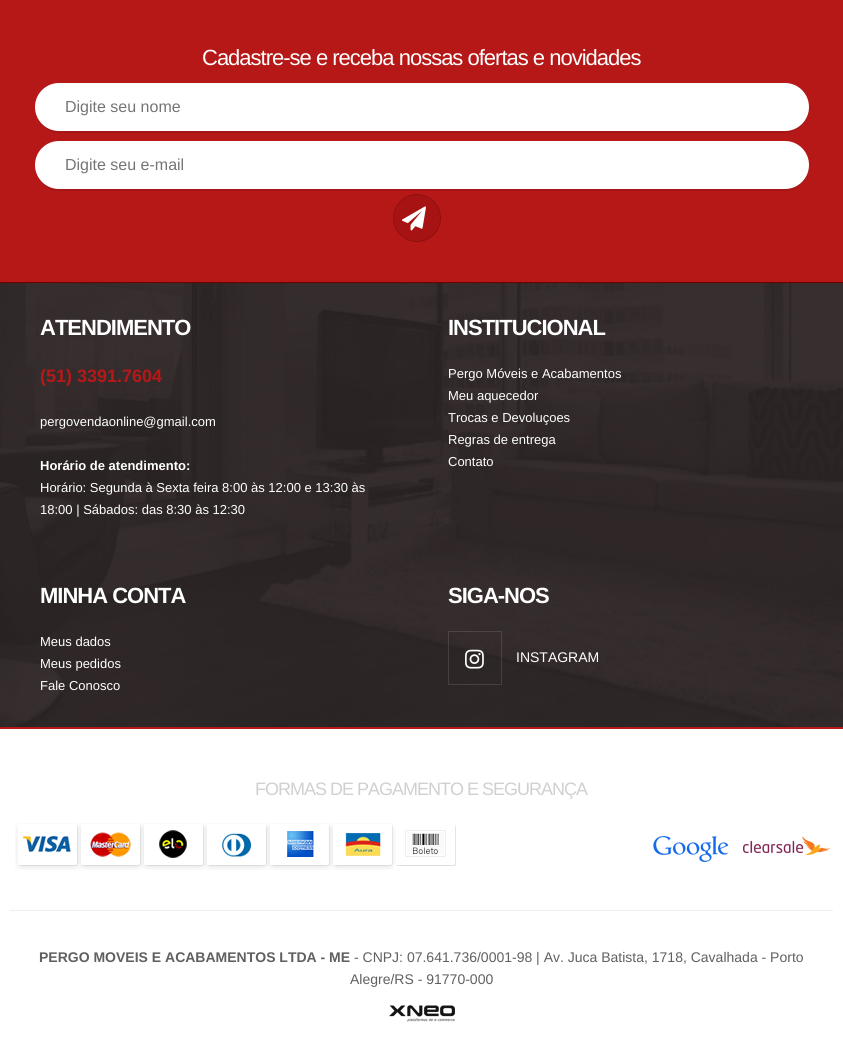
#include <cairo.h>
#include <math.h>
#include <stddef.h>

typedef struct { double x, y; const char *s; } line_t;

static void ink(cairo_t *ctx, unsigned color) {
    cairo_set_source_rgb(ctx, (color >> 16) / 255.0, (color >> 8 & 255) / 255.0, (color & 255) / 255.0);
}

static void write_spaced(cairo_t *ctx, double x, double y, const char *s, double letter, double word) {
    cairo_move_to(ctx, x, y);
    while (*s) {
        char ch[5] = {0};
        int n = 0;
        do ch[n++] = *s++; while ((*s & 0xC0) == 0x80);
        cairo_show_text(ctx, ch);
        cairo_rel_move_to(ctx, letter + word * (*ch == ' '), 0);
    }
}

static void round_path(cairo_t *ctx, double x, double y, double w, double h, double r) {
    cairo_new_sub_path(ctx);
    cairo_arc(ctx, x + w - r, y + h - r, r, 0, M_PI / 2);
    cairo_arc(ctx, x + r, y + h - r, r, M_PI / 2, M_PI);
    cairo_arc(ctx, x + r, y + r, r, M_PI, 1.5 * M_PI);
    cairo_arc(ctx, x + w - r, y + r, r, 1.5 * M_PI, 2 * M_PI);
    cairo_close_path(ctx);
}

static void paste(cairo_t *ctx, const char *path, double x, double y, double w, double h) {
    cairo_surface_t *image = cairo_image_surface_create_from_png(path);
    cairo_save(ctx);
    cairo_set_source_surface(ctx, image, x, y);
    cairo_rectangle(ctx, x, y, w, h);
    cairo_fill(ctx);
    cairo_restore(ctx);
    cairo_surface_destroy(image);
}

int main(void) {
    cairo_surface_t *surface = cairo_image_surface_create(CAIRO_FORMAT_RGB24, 843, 1046);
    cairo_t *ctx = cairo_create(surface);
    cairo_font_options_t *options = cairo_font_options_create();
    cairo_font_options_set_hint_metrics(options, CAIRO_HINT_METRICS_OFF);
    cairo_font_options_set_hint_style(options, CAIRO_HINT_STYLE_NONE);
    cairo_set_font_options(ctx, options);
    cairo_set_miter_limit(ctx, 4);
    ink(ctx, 0xFFFFFF);
    cairo_paint(ctx);
    ink(ctx, 0xB61818);
    cairo_rectangle(ctx, 0, 0, 843, 282);
    cairo_fill(ctx);
    ink(ctx, 0x6D0000);
    cairo_rectangle(ctx, 0, 282, 843, 1);
    cairo_fill(ctx);
    cairo_select_font_face(ctx, "Liberation Sans", CAIRO_FONT_SLANT_NORMAL, CAIRO_FONT_WEIGHT_NORMAL);
    cairo_set_font_size(ctx, 22);
    ink(ctx, 0xFFFFFF);
    write_spaced(ctx, 202, 65, "Cadastre-se e receba nossas ofertas e novidades", -1, 0);
    ink(ctx, 0xA41616);
    cairo_new_path(ctx);
    cairo_move_to(ctx, 35, 108);
    cairo_curve_to(ctx, 35, 116, 39, 124, 46, 129);
    cairo_curve_to(ctx, 50, 132, 54, 133, 59, 133);
    cairo_line_to(ctx, 785, 133);
    cairo_curve_to(ctx, 798, 133, 810, 121, 809, 108);
    cairo_curve_to(ctx, 808, 121, 798, 131, 785, 131);
    cairo_line_to(ctx, 59, 131);
    cairo_curve_to(ctx, 46, 131, 36, 121, 35, 108);
    cairo_close_path(ctx);
    cairo_fill(ctx);
    ink(ctx, 0xFFFFFF);
    round_path(ctx, 35, 83, 774, 48, 24);
    cairo_fill(ctx);
    cairo_set_font_size(ctx, 16);
    ink(ctx, 0x757575);
    cairo_move_to(ctx, 65, 112);
    cairo_show_text(ctx, "Digite seu nome");
    ink(ctx, 0xA41616);
    cairo_new_path(ctx);
    cairo_move_to(ctx, 35, 166);
    cairo_curve_to(ctx, 35, 174, 39, 182, 46, 187);
    cairo_curve_to(ctx, 50, 190, 54, 191, 59, 191);
    cairo_line_to(ctx, 785, 191);
    cairo_curve_to(ctx, 798, 191, 810, 179, 809, 166);
    cairo_curve_to(ctx, 808, 179, 798, 189, 785, 189);
    cairo_line_to(ctx, 59, 189);
    cairo_curve_to(ctx, 46, 189, 36, 179, 35, 166);
    cairo_close_path(ctx);
    cairo_fill(ctx);
    ink(ctx, 0xFFFFFF);
    round_path(ctx, 35, 141, 774, 48, 24);
    cairo_fill(ctx);
    ink(ctx, 0x757575);
    cairo_move_to(ctx, 65, 170);
    cairo_show_text(ctx, "Digite seu e-mail");
    ink(ctx, 0xA71313);
    cairo_new_path(ctx);
    cairo_arc(ctx, 417, 218, 24, 0, 2 * M_PI);
    cairo_fill(ctx);
    cairo_arc(ctx, 417, 218, 23.5, 0, 2 * M_PI);
    cairo_set_source_rgba(ctx, 0, 0, 0, 0.15);
    cairo_set_line_width(ctx, 1);
    cairo_stroke(ctx);
    paste(ctx, "media/1.png", 402, 206, 24, 25);
    paste(ctx, "media/2.png", 0, 283, 843, 444);
    cairo_select_font_face(ctx, "Liberation Sans", CAIRO_FONT_SLANT_NORMAL, CAIRO_FONT_WEIGHT_BOLD);
    cairo_set_font_size(ctx, 22);
    ink(ctx, 0xFFFFFF);
    write_spaced(ctx, 40, 335, "ATENDIMENTO", -1, 0);
    cairo_set_font_size(ctx, 18);
    ink(ctx, 0xB61818);
    cairo_move_to(ctx, 40, 382);
    cairo_show_text(ctx, "(51) 3391.7604");
    cairo_select_font_face(ctx, "Liberation Sans", CAIRO_FONT_SLANT_NORMAL, CAIRO_FONT_WEIGHT_NORMAL);
    cairo_set_font_size(ctx, 13);
    ink(ctx, 0xFFFFFF);
    cairo_move_to(ctx, 40, 426);
    cairo_show_text(ctx, "pergovendaonline@gmail.com");
    cairo_select_font_face(ctx, "Liberation Sans", CAIRO_FONT_SLANT_NORMAL, CAIRO_FONT_WEIGHT_BOLD);
    cairo_move_to(ctx, 40, 470);
    cairo_show_text(ctx, "Horário de atendimento:");
    cairo_select_font_face(ctx, "Liberation Sans", CAIRO_FONT_SLANT_NORMAL, CAIRO_FONT_WEIGHT_NORMAL);
    cairo_move_to(ctx, 40, 492);
    cairo_show_text(ctx, "Horário: Segunda à Sexta feira 8:00 às 12:00 e 13:30 às");
    cairo_move_to(ctx, 40, 514);
    cairo_show_text(ctx, "18:00 | Sábados: das 8:30 às 12:30");
    cairo_select_font_face(ctx, "Liberation Sans", CAIRO_FONT_SLANT_NORMAL, CAIRO_FONT_WEIGHT_BOLD);
    cairo_set_font_size(ctx, 22);
    write_spaced(ctx, 448, 335, "INSTITUCIONAL", -1, 0);
    cairo_select_font_face(ctx, "Liberation Sans", CAIRO_FONT_SLANT_NORMAL, CAIRO_FONT_WEIGHT_NORMAL);
    cairo_set_font_size(ctx, 13);
    {
        static const line_t items[] = {
            {448, 378, "Pergo Móveis e Acabamentos"},
            {448, 400, "Meu aquecedor"},
            {448, 422, "Trocas e Devoluçoes"},
            {448, 444, "Regras de entrega"},
            {448, 466, "Contato"},
        };
        for (size_t i = 0; i < sizeof items / sizeof *items; i++) {
            cairo_move_to(ctx, items[i].x, items[i].y);
            cairo_show_text(ctx, items[i].s);
        }
    }
    cairo_select_font_face(ctx, "Liberation Sans", CAIRO_FONT_SLANT_NORMAL, CAIRO_FONT_WEIGHT_BOLD);
    cairo_set_font_size(ctx, 22);
    write_spaced(ctx, 40, 603, "MINHA CONTA", -1, 0);
    cairo_select_font_face(ctx, "Liberation Sans", CAIRO_FONT_SLANT_NORMAL, CAIRO_FONT_WEIGHT_NORMAL);
    cairo_set_font_size(ctx, 13);
    {
        static const line_t items[] = {
            {40, 646, "Meus dados"},
            {40, 668, "Meus pedidos"},
            {40, 690, "Fale Conosco"},
        };
        for (size_t i = 0; i < sizeof items / sizeof *items; i++) {
            cairo_move_to(ctx, items[i].x, items[i].y);
            cairo_show_text(ctx, items[i].s);
        }
    }
    cairo_select_font_face(ctx, "Liberation Sans", CAIRO_FONT_SLANT_NORMAL, CAIRO_FONT_WEIGHT_BOLD);
    cairo_set_font_size(ctx, 22);
    write_spaced(ctx, 448, 603, "SIGA-NOS", -1, 0);
    cairo_rectangle(ctx, 448.5, 631.5, 53, 53);
    cairo_set_source_rgba(ctx, 1, 1, 1, 0.12);
    cairo_stroke(ctx);
    paste(ctx, "media/3.png", 465, 649, 19, 20);
    cairo_select_font_face(ctx, "Liberation Sans", CAIRO_FONT_SLANT_NORMAL, CAIRO_FONT_WEIGHT_NORMAL);
    cairo_set_font_size(ctx, 14);
    ink(ctx, 0xFFFFFF);
    cairo_move_to(ctx, 516, 662);
    cairo_show_text(ctx, "INSTAGRAM");
    ink(ctx, 0xB61818);
    cairo_rectangle(ctx, 0, 727, 843, 2);
    cairo_fill(ctx);
    cairo_set_font_size(ctx, 18);
    ink(ctx, 0xD0D0D0);
    write_spaced(ctx, 255, 795, "FORMAS DE PAGAMENTO E SEGURANÇA", -1, 0);
    paste(ctx, "media/4.png", 15, 823, 441, 47);
    paste(ctx, "media/5.png", 653, 836, 76, 26);
    paste(ctx, "media/6.png", 743, 836, 87, 19);
    ink(ctx, 0xEEEEEE);
    cairo_rectangle(ctx, 10, 910, 823, 1);
    cairo_fill(ctx);
    cairo_select_font_face(ctx, "Liberation Sans", CAIRO_FONT_SLANT_NORMAL, CAIRO_FONT_WEIGHT_BOLD);
    cairo_set_font_size(ctx, 14);
    ink(ctx, 0x606062);
    cairo_move_to(ctx, 39, 962);
    cairo_show_text(ctx, "PERGO MOVEIS E ACABAMENTOS LTDA - ME");
    cairo_select_font_face(ctx, "Liberation Sans", CAIRO_FONT_SLANT_NORMAL, CAIRO_FONT_WEIGHT_NORMAL);
    cairo_move_to(ctx, 354, 962);
    cairo_show_text(ctx, "- CNPJ: 07.641.736/0001-98 | Av. Juca Batista, 1718, Cavalhada - Porto");
    cairo_move_to(ctx, 350, 984);
    cairo_show_text(ctx, "Alegre/RS - 91770-000");
    paste(ctx, "media/7.png", 389, 1005, 66, 17);
    cairo_surface_write_to_png(surface, "image.png");
    cairo_font_options_destroy(options);
    cairo_destroy(ctx);
    cairo_surface_destroy(surface);
    return 0;
}
